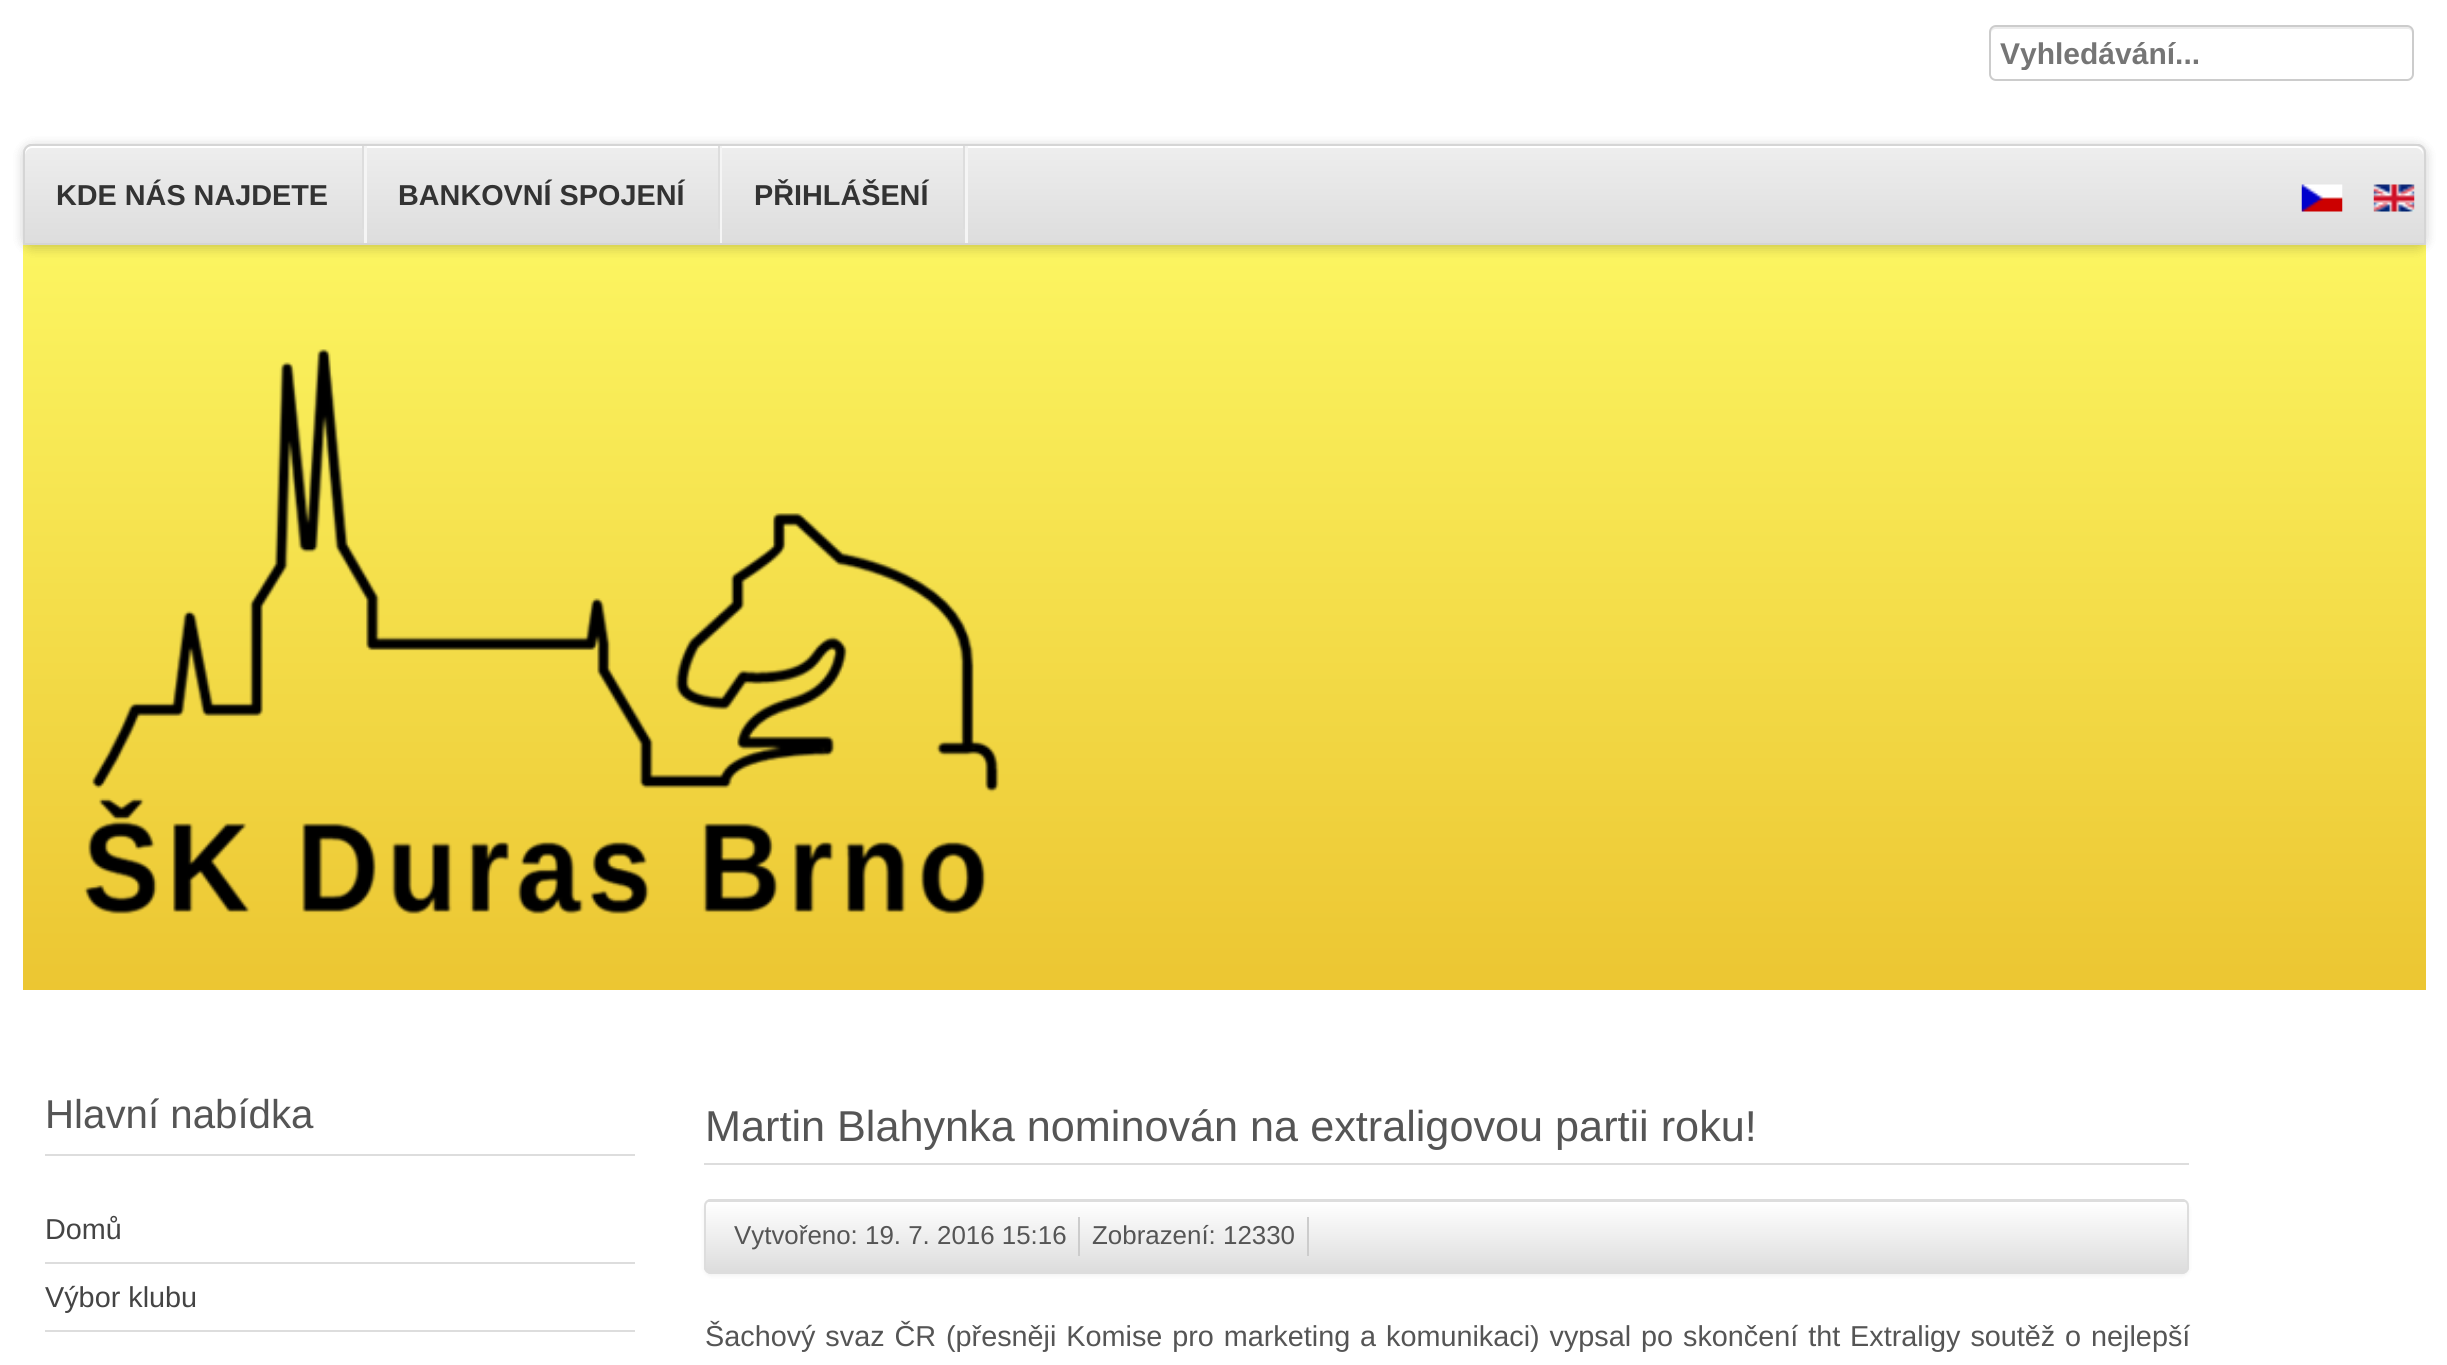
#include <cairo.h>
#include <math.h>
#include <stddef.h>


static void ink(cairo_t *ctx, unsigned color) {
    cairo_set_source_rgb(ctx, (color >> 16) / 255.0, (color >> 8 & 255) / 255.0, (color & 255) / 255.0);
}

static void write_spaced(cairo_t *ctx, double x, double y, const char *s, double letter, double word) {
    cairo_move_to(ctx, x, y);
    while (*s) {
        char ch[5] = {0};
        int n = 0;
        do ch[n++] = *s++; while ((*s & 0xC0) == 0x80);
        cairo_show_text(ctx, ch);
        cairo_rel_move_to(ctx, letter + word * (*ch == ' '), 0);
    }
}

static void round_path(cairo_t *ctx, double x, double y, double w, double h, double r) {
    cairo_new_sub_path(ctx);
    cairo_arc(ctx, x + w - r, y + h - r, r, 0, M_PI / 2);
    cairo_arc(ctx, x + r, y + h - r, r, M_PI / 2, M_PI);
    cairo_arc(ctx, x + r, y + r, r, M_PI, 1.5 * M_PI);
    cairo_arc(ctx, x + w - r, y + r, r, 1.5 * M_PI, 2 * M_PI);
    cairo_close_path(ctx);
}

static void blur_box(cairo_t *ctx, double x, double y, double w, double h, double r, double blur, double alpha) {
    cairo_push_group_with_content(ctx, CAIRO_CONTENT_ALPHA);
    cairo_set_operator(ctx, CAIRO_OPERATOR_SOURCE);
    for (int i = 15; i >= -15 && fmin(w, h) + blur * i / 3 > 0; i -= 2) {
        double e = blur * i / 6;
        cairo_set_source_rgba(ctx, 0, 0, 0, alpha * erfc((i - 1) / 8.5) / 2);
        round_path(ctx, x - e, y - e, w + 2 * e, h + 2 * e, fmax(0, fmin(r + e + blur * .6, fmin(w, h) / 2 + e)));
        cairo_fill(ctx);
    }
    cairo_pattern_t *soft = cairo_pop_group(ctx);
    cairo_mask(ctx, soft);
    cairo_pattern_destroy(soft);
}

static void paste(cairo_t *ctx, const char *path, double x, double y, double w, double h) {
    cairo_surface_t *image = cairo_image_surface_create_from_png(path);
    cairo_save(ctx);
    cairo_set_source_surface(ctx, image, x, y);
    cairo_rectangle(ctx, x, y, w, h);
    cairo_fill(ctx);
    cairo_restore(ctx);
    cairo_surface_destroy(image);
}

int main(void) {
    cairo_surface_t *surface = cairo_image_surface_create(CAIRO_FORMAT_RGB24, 2447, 1365);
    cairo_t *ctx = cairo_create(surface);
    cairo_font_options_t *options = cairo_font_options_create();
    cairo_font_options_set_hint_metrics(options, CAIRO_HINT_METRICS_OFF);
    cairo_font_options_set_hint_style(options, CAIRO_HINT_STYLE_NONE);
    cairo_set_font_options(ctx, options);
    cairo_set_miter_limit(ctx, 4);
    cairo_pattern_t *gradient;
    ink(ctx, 0xFFFFFF);
    cairo_paint(ctx);
    ink(ctx, 0xECECEC);
    cairo_new_path(ctx);
    cairo_move_to(ctx, 1996, 29);
    cairo_line_to(ctx, 2408, 29);
    cairo_curve_to(ctx, 2410, 29, 2412, 31, 2412, 34);
    cairo_line_to(ctx, 2412, 32);
    cairo_curve_to(ctx, 2412, 29, 2410, 27, 2407, 27);
    cairo_line_to(ctx, 1996, 27);
    cairo_curve_to(ctx, 1993, 27, 1991, 29, 1991, 32);
    cairo_line_to(ctx, 1991, 34);
    cairo_curve_to(ctx, 1991, 31, 1993, 29, 1996, 29);
    cairo_close_path(ctx);
    cairo_fill(ctx);
    round_path(ctx, 1990, 26, 423, 54, 6);
    ink(ctx, 0xCCCCCC);
    cairo_stroke(ctx);
    cairo_save(ctx);
    cairo_rectangle(ctx, 2000, 36, 374, 34);
    cairo_clip(ctx);
    cairo_select_font_face(ctx, "Liberation Sans", CAIRO_FONT_SLANT_NORMAL, CAIRO_FONT_WEIGHT_BOLD);
    cairo_set_font_size(ctx, 30);
    ink(ctx, 0x757575);
    cairo_move_to(ctx, 2000, 64);
    cairo_show_text(ctx, "Vyhledávání...");
    cairo_restore(ctx);
    gradient = cairo_pattern_create_linear(1224, 225, 1224, 990);
    cairo_pattern_add_color_stop_rgba(gradient, 0, 0.988, 0.965, 0.384, 1);
    cairo_pattern_add_color_stop_rgba(gradient, 1, 0.925, 0.776, 0.196, 1);
    cairo_set_source(ctx, gradient);
    cairo_pattern_destroy(gradient);
    cairo_rectangle(ctx, 23, 245, 2403, 745);
    cairo_fill(ctx);
    ink(ctx, 0x000000);
    blur_box(ctx, 23, 146, 2403, 102, 9, 5.5, 0.1);
    cairo_new_path(ctx);
    cairo_move_to(ctx, 32, 145);
    cairo_line_to(ctx, 2417, 145);
    cairo_curve_to(ctx, 2421.5, 145, 2425, 148.5, 2425, 153);
    cairo_line_to(ctx, 2425, 244);
    cairo_line_to(ctx, 24, 244);
    cairo_line_to(ctx, 24, 153);
    cairo_curve_to(ctx, 24, 148.5, 27.5, 145, 32, 145);
    cairo_close_path(ctx);
    ink(ctx, 0xD5D5D5);
    cairo_stroke(ctx);
    ink(ctx, 0x000000);
    blur_box(ctx, 23, 146, 2403, 102, 9, 5.5, 0.1);
    cairo_save(ctx);
    cairo_new_path(ctx);
    cairo_move_to(ctx, 32, 144);
    cairo_line_to(ctx, 2417, 144);
    cairo_curve_to(ctx, 2422, 144, 2426, 148, 2426, 153);
    cairo_line_to(ctx, 2426, 245);
    cairo_line_to(ctx, 23, 245);
    cairo_line_to(ctx, 23, 153);
    cairo_curve_to(ctx, 23, 148, 27, 144, 32, 144);
    cairo_close_path(ctx);
    cairo_clip(ctx);
    gradient = cairo_pattern_create_linear(1224, 146, 1224, 243);
    cairo_pattern_add_color_stop_rgba(gradient, 0, 0.933, 0.933, 0.933, 1);
    cairo_pattern_add_color_stop_rgba(gradient, 1, 0.867, 0.867, 0.867, 1);
    cairo_set_source(ctx, gradient);
    cairo_pattern_destroy(gradient);
    cairo_rectangle(ctx, 23, 146, 2403, 97);
    cairo_fill(ctx);
    cairo_restore(ctx);
    ink(ctx, 0xFFFFFF);
    cairo_new_path(ctx);
    cairo_move_to(ctx, 32, 148);
    cairo_line_to(ctx, 2416, 148);
    cairo_curve_to(ctx, 2420, 148, 2423, 152, 2423, 155);
    cairo_line_to(ctx, 2423, 153);
    cairo_curve_to(ctx, 2423, 149, 2420, 146, 2416, 146);
    cairo_line_to(ctx, 32, 146);
    cairo_curve_to(ctx, 28, 146, 25, 149, 25, 153);
    cairo_line_to(ctx, 25, 155);
    cairo_curve_to(ctx, 25, 152, 28, 148, 32, 148);
    cairo_close_path(ctx);
    cairo_fill(ctx);
    cairo_new_path(ctx);
    cairo_move_to(ctx, 32, 145);
    cairo_line_to(ctx, 2417, 145);
    cairo_curve_to(ctx, 2421.5, 145, 2425, 148.5, 2425, 153);
    cairo_line_to(ctx, 2425, 244);
    cairo_line_to(ctx, 24, 244);
    cairo_line_to(ctx, 24, 153);
    cairo_curve_to(ctx, 24, 148.5, 27.5, 145, 32, 145);
    cairo_close_path(ctx);
    ink(ctx, 0xD5D5D5);
    cairo_stroke(ctx);
    paste(ctx, "media/1.png", 2301, 184, 42, 28);
    paste(ctx, "media/2.png", 2373, 184, 42, 28);
    ink(ctx, 0xF5F5F5);
    cairo_new_path(ctx);
    cairo_move_to(ctx, 34, 146);
    cairo_line_to(ctx, 32, 146);
    cairo_line_to(ctx, 364, 146);
    cairo_line_to(ctx, 364, 243);
    cairo_line_to(ctx, 367, 243);
    cairo_line_to(ctx, 367, 146);
    cairo_close_path(ctx);
    cairo_fill(ctx);
    ink(ctx, 0xDDDDDD);
    cairo_rectangle(ctx, 362, 146, 2, 83);
    cairo_fill(ctx);
    cairo_select_font_face(ctx, "Liberation Sans", CAIRO_FONT_SLANT_NORMAL, CAIRO_FONT_WEIGHT_BOLD);
    cairo_set_font_size(ctx, 28.8);
    ink(ctx, 0x333333);
    cairo_move_to(ctx, 56, 205);
    cairo_show_text(ctx, "KDE NÁS NAJDETE");
    ink(ctx, 0xF5F5F5);
    cairo_new_path(ctx);
    cairo_move_to(ctx, 367, 146);
    cairo_line_to(ctx, 720, 146);
    cairo_line_to(ctx, 720, 243);
    cairo_line_to(ctx, 722, 243);
    cairo_line_to(ctx, 722, 146);
    cairo_close_path(ctx);
    cairo_fill(ctx);
    ink(ctx, 0xDDDDDD);
    cairo_rectangle(ctx, 718, 146, 2, 83);
    cairo_fill(ctx);
    ink(ctx, 0x333333);
    cairo_move_to(ctx, 398, 205);
    cairo_show_text(ctx, "BANKOVNÍ SPOJENÍ");
    ink(ctx, 0xF5F5F5);
    cairo_new_path(ctx);
    cairo_move_to(ctx, 722, 146);
    cairo_line_to(ctx, 965, 146);
    cairo_line_to(ctx, 965, 243);
    cairo_line_to(ctx, 968, 243);
    cairo_line_to(ctx, 968, 146);
    cairo_close_path(ctx);
    cairo_fill(ctx);
    ink(ctx, 0xDDDDDD);
    cairo_rectangle(ctx, 963, 146, 2, 83);
    cairo_fill(ctx);
    ink(ctx, 0x333333);
    cairo_move_to(ctx, 754, 205);
    cairo_show_text(ctx, "PŘIHLÁŠENÍ");
    paste(ctx, "media/3.png", 84, 349, 915, 565);
    ink(ctx, 0xDDDDDD);
    cairo_rectangle(ctx, 45, 1154, 590, 2);
    cairo_fill(ctx);
    cairo_select_font_face(ctx, "Liberation Sans", CAIRO_FONT_SLANT_NORMAL, CAIRO_FONT_WEIGHT_NORMAL);
    cairo_set_font_size(ctx, 40.25);
    ink(ctx, 0x555555);
    cairo_move_to(ctx, 45, 1128);
    cairo_show_text(ctx, "Hlavní nabídka");
    ink(ctx, 0xDDDDDD);
    cairo_rectangle(ctx, 45, 1262, 590, 2);
    cairo_fill(ctx);
    cairo_set_font_size(ctx, 28.8);
    ink(ctx, 0x444444);
    cairo_move_to(ctx, 45, 1239);
    cairo_show_text(ctx, "Domů");
    ink(ctx, 0xDDDDDD);
    cairo_rectangle(ctx, 45, 1330, 590, 2);
    cairo_fill(ctx);
    ink(ctx, 0x444444);
    cairo_move_to(ctx, 45, 1307);
    cairo_show_text(ctx, "Výbor klubu");
    ink(ctx, 0xDDDDDD);
    cairo_rectangle(ctx, 704, 1163, 1485, 2);
    cairo_fill(ctx);
    cairo_set_font_size(ctx, 43.2);
    ink(ctx, 0x555555);
    cairo_move_to(ctx, 705, 1141);
    cairo_show_text(ctx, "Martin Blahynka nominován na extraligovou partii roku!");
    ink(ctx, 0x000000);
    blur_box(ctx, 704, 1202, 1485, 74, 7, 2, 0.05);
    ink(ctx, 0xDDDDDD);
    round_path(ctx, 704, 1199, 1485, 75, 7);
    cairo_fill(ctx);
    cairo_save(ctx);
    round_path(ctx, 704, 1199, 1485, 75, 7);
    cairo_clip(ctx);
    gradient = cairo_pattern_create_linear(1447, 1202, 1447, 1271);
    cairo_pattern_add_color_stop_rgba(gradient, 0, 1, 1, 1, 1);
    cairo_pattern_add_color_stop_rgba(gradient, 1, 0.867, 0.867, 0.867, 1);
    cairo_set_source(ctx, gradient);
    cairo_pattern_destroy(gradient);
    cairo_rectangle(ctx, 704, 1202, 1485, 69);
    cairo_fill(ctx);
    cairo_restore(ctx);
    round_path(ctx, 705, 1200, 1483, 73, 6);
    cairo_stroke(ctx);
    ink(ctx, 0xCCCCCC);
    cairo_rectangle(ctx, 1078, 1217, 2, 39);
    cairo_fill(ctx);
    cairo_set_font_size(ctx, 25.9);
    ink(ctx, 0x555555);
    cairo_move_to(ctx, 734, 1244);
    cairo_show_text(ctx, "Vytvořeno: 19. 7. 2016 15:16");
    ink(ctx, 0xCCCCCC);
    cairo_rectangle(ctx, 1307, 1217, 2, 39);
    cairo_fill(ctx);
    ink(ctx, 0x555555);
    cairo_move_to(ctx, 1092, 1244);
    cairo_show_text(ctx, "Zobrazení: 12330");
    cairo_set_font_size(ctx, 28.8);
    write_spaced(ctx, 705, 1346, "Šachový svaz ČR (přesněji Komise pro marketing a komunikaci) vypsal po skončení tht Extraligy soutěž o nejlepší", 0, 1.9);
    cairo_surface_write_to_png(surface, "image.png");
    cairo_font_options_destroy(options);
    cairo_destroy(ctx);
    cairo_surface_destroy(surface);
    return 0;
}
